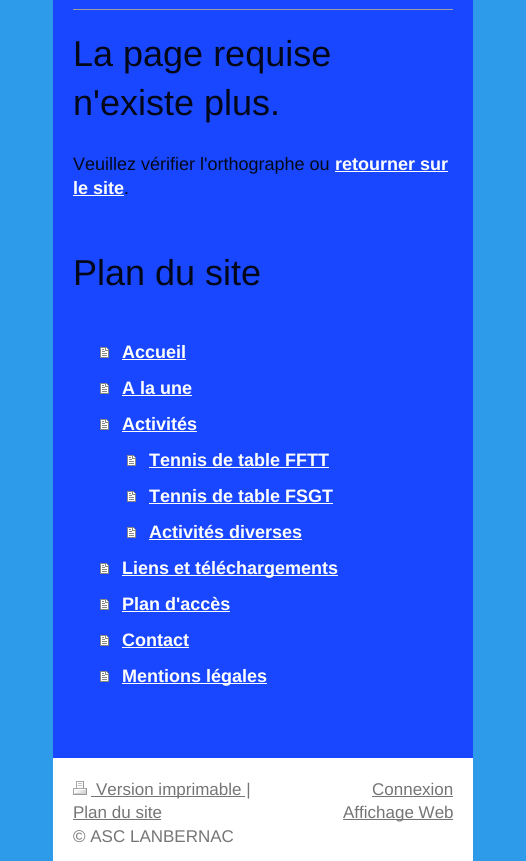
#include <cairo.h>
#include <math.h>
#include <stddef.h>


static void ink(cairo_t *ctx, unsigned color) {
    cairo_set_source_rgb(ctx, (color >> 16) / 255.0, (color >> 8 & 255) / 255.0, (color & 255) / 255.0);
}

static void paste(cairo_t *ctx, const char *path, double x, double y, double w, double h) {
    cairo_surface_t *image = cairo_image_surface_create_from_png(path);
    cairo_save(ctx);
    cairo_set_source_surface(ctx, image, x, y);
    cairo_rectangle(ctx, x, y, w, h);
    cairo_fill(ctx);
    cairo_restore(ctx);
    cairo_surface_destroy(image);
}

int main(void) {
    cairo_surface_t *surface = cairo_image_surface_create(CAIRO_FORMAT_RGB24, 526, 861);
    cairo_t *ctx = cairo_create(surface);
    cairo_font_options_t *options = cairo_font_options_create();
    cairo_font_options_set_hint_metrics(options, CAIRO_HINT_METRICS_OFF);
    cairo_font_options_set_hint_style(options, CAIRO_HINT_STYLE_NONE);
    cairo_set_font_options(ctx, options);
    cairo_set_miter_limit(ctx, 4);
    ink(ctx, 0x2D9BEA);
    cairo_paint(ctx);
    ink(ctx, 0x1847FF);
    cairo_rectangle(ctx, 53, 0, 420, 758);
    cairo_fill(ctx);
    ink(ctx, 0xA0A0A0);
    cairo_rectangle(ctx, 73, 9, 380, 1);
    cairo_fill(ctx);
    cairo_select_font_face(ctx, "Liberation Sans", CAIRO_FONT_SLANT_NORMAL, CAIRO_FONT_WEIGHT_NORMAL);
    cairo_set_font_size(ctx, 36);
    ink(ctx, 0x02071A);
    cairo_move_to(ctx, 73, 66);
    cairo_show_text(ctx, "La page requise");
    cairo_move_to(ctx, 73, 115);
    cairo_show_text(ctx, "n'existe plus.");
    cairo_set_font_size(ctx, 18);
    cairo_move_to(ctx, 73, 170);
    cairo_show_text(ctx, "Veuillez vérifier l'orthographe ou");
    cairo_select_font_face(ctx, "Liberation Sans", CAIRO_FONT_SLANT_NORMAL, CAIRO_FONT_WEIGHT_BOLD);
    ink(ctx, 0xFFFFFF);
    cairo_move_to(ctx, 335, 170);
    cairo_show_text(ctx, "retourner sur");
    cairo_rectangle(ctx, 335, 171, 113, 1);
    cairo_fill(ctx);
    cairo_move_to(ctx, 73, 194);
    cairo_show_text(ctx, "le site");
    cairo_rectangle(ctx, 73, 195, 51, 1);
    cairo_fill(ctx);
    cairo_select_font_face(ctx, "Liberation Sans", CAIRO_FONT_SLANT_NORMAL, CAIRO_FONT_WEIGHT_NORMAL);
    ink(ctx, 0x02071A);
    cairo_move_to(ctx, 124, 194);
    cairo_show_text(ctx, ".");
    cairo_set_font_size(ctx, 36);
    cairo_move_to(ctx, 73, 285);
    cairo_show_text(ctx, "Plan du site");
    paste(ctx, "media/1.png", 100, 347, 9, 11);
    cairo_select_font_face(ctx, "Liberation Sans", CAIRO_FONT_SLANT_NORMAL, CAIRO_FONT_WEIGHT_BOLD);
    cairo_set_font_size(ctx, 18);
    ink(ctx, 0xFFFFFF);
    cairo_move_to(ctx, 122, 358);
    cairo_show_text(ctx, "Accueil");
    cairo_rectangle(ctx, 122, 359, 64, 1);
    cairo_fill(ctx);
    paste(ctx, "media/1.png", 100, 383, 9, 11);
    cairo_move_to(ctx, 122, 394);
    cairo_show_text(ctx, "A la une");
    cairo_rectangle(ctx, 122, 395, 70, 1);
    cairo_fill(ctx);
    paste(ctx, "media/1.png", 100, 419, 9, 11);
    cairo_move_to(ctx, 122, 430);
    cairo_show_text(ctx, "Activités");
    cairo_rectangle(ctx, 122, 431, 75, 1);
    cairo_fill(ctx);
    paste(ctx, "media/1.png", 127, 455, 9, 11);
    cairo_move_to(ctx, 149, 466);
    cairo_show_text(ctx, "Tennis de table FFTT");
    cairo_rectangle(ctx, 149, 467, 180, 1);
    cairo_fill(ctx);
    paste(ctx, "media/1.png", 127, 491, 9, 11);
    cairo_move_to(ctx, 149, 502);
    cairo_show_text(ctx, "Tennis de table FSGT");
    cairo_rectangle(ctx, 149, 503, 184, 1);
    cairo_fill(ctx);
    paste(ctx, "media/1.png", 127, 527, 9, 11);
    cairo_move_to(ctx, 149, 538);
    cairo_show_text(ctx, "Activités diverses");
    cairo_rectangle(ctx, 149, 539, 153, 1);
    cairo_fill(ctx);
    paste(ctx, "media/1.png", 100, 563, 9, 11);
    cairo_rectangle(ctx, 122, 575, 216, 1);
    cairo_fill(ctx);
    cairo_move_to(ctx, 122, 574);
    cairo_show_text(ctx, "Liens et téléchargements");
    paste(ctx, "media/1.png", 100, 599, 9, 11);
    cairo_move_to(ctx, 122, 610);
    cairo_show_text(ctx, "Plan d'accès");
    cairo_rectangle(ctx, 122, 611, 108, 1);
    cairo_fill(ctx);
    paste(ctx, "media/1.png", 100, 635, 9, 11);
    cairo_move_to(ctx, 122, 646);
    cairo_show_text(ctx, "Contact");
    cairo_rectangle(ctx, 122, 647, 67, 1);
    cairo_fill(ctx);
    paste(ctx, "media/1.png", 100, 671, 9, 11);
    cairo_rectangle(ctx, 122, 683, 145, 1);
    cairo_fill(ctx);
    cairo_move_to(ctx, 122, 682);
    cairo_show_text(ctx, "Mentions légales");
    cairo_rectangle(ctx, 53, 758, 420, 103);
    cairo_fill(ctx);
    paste(ctx, "media/2.png", 73, 781, 14, 14);
    ink(ctx, 0x757575);
    cairo_rectangle(ctx, 91, 796, 154, 1);
    cairo_fill(ctx);
    cairo_select_font_face(ctx, "Liberation Sans", CAIRO_FONT_SLANT_NORMAL, CAIRO_FONT_WEIGHT_NORMAL);
    cairo_set_font_size(ctx, 17);
    cairo_move_to(ctx, 96, 795);
    cairo_show_text(ctx, "Version imprimable |");
    cairo_move_to(ctx, 73, 818);
    cairo_show_text(ctx, "Plan du site");
    cairo_rectangle(ctx, 73, 819, 88, 1);
    cairo_fill(ctx);
    cairo_move_to(ctx, 73, 842);
    cairo_show_text(ctx, "© ASC LANBERNAC");
    cairo_move_to(ctx, 372, 795);
    cairo_show_text(ctx, "Connexion");
    cairo_rectangle(ctx, 372, 796, 81, 1);
    cairo_fill(ctx);
    cairo_rectangle(ctx, 343, 819, 110, 1);
    cairo_fill(ctx);
    cairo_move_to(ctx, 343, 818);
    cairo_show_text(ctx, "Affichage Web");
    cairo_surface_write_to_png(surface, "image.png");
    cairo_font_options_destroy(options);
    cairo_destroy(ctx);
    cairo_surface_destroy(surface);
    return 0;
}
